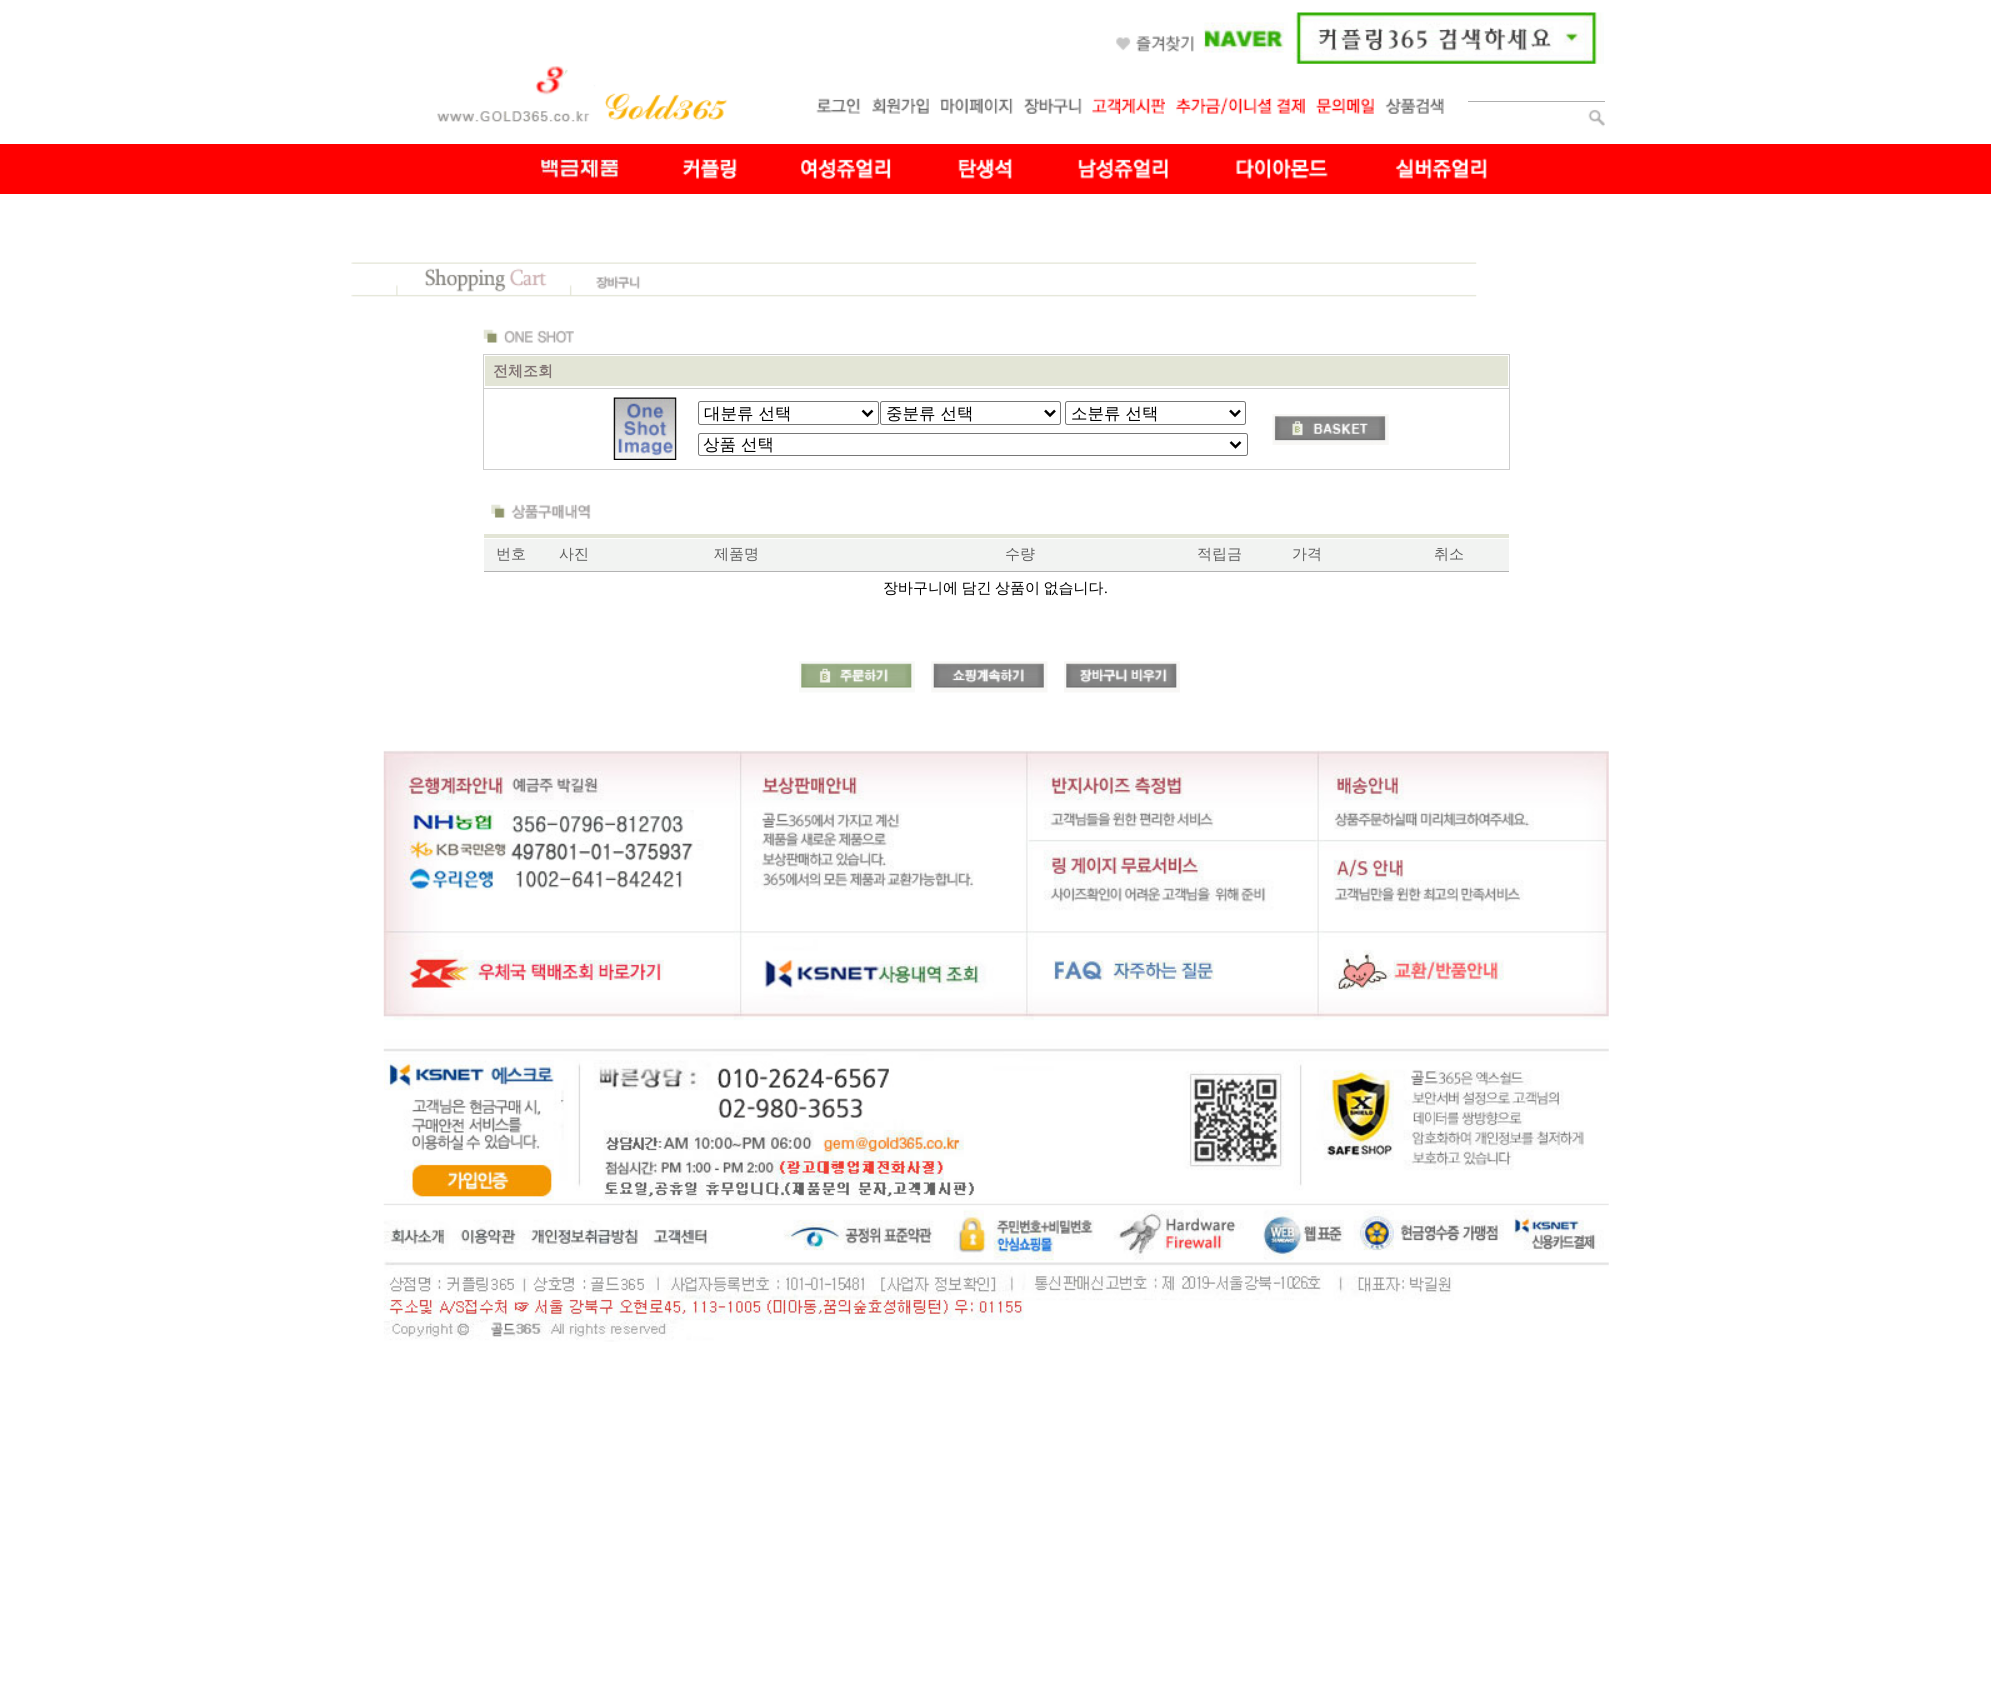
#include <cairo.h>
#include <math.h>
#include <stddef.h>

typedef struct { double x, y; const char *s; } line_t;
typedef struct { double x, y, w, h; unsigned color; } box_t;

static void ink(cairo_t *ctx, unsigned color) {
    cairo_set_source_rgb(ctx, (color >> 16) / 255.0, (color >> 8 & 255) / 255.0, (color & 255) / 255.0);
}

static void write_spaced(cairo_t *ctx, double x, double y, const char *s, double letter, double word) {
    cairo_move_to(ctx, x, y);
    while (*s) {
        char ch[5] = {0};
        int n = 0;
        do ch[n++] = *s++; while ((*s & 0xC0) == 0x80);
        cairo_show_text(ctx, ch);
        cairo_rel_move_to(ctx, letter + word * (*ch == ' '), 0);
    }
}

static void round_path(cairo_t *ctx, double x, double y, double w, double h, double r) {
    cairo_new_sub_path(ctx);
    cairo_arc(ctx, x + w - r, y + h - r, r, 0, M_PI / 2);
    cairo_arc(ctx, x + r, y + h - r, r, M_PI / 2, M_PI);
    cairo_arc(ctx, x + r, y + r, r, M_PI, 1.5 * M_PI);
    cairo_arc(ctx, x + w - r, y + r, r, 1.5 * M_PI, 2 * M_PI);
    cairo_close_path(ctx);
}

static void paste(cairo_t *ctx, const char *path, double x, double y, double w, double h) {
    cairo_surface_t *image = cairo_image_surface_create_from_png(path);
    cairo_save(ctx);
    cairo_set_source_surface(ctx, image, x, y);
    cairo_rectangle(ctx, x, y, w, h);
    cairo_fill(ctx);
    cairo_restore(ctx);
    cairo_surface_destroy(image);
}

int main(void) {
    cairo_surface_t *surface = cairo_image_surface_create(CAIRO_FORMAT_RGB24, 1991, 1686);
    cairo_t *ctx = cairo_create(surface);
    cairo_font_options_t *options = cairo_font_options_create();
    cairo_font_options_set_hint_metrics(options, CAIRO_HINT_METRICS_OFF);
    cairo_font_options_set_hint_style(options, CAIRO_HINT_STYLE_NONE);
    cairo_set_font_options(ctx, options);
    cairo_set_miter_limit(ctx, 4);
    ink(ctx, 0xFFFFFF);
    cairo_paint(ctx);
    paste(ctx, "media/1.png", 437, 66, 291, 56);
    paste(ctx, "media/2.png", 1116, 35, 78, 17);
    paste(ctx, "media/3.png", 1203, 12, 401, 52);
    paste(ctx, "media/4.png", 816, 98, 45, 16);
    paste(ctx, "media/5.png", 872, 97, 57, 17);
    paste(ctx, "media/6.png", 940, 98, 73, 16);
    paste(ctx, "media/7.png", 1023, 98, 59, 16);
    paste(ctx, "media/8.png", 1092, 98, 73, 16);
    paste(ctx, "media/9.png", 1176, 97, 129, 19);
    paste(ctx, "media/10.png", 1316, 98, 58, 18);
    paste(ctx, "media/11.png", 1385, 98, 59, 16);
    ink(ctx, 0xAFAFAF);
    cairo_rectangle(ctx, 1468, 101, 137, 1);
    cairo_fill(ctx);
    paste(ctx, "media/12.png", 1588, 109, 17, 18);
    ink(ctx, 0xFF0000);
    cairo_rectangle(ctx, 0, 144, 1991, 50);
    cairo_fill(ctx);
    paste(ctx, "media/13.png", 540, 157, 79, 21);
    paste(ctx, "media/14.png", 682, 158, 55, 21);
    paste(ctx, "media/15.png", 801, 158, 90, 21);
    paste(ctx, "media/16.png", 958, 158, 54, 21);
    paste(ctx, "media/17.png", 1078, 158, 90, 21);
    paste(ctx, "media/18.png", 1236, 158, 92, 21);
    paste(ctx, "media/19.png", 1395, 158, 92, 21);
    paste(ctx, "media/20.png", 351, 262, 1126, 35);
    paste(ctx, "media/21.png", 483, 329, 91, 15);
    {
        static const box_t items[] = {
            {483, 354, 1027, 116, 0xCECECE},
            {484, 355, 1025, 33, 0xFFFFFF},
            {485, 356, 1023, 30, 0xE3E5D6},
        };
        for (size_t i = 0; i < sizeof items / sizeof *items; i++) {
            ink(ctx, items[i].color);
            cairo_rectangle(ctx, items[i].x, items[i].y, items[i].w, items[i].h);
            cairo_fill(ctx);
        }
    }
    cairo_select_font_face(ctx, "WenQuanYi Zen Hei", CAIRO_FONT_SLANT_NORMAL, CAIRO_FONT_WEIGHT_BOLD);
    cairo_set_font_size(ctx, 15);
    ink(ctx, 0x817474);
    cairo_move_to(ctx, 493, 376);
    cairo_show_text(ctx, "전체조회");
    ink(ctx, 0xFFFFFF);
    cairo_rectangle(ctx, 484, 389, 1025, 80);
    cairo_fill(ctx);
    paste(ctx, "media/22.png", 613, 397, 64, 63);
    round_path(ctx, 698.5, 401.5, 180, 23, 2);
    ink(ctx, 0x767676);
    cairo_set_line_width(ctx, 1);
    cairo_stroke(ctx);
    cairo_new_path(ctx);
    cairo_move_to(ctx, 862.5, 410.5);
    cairo_line_to(ctx, 867.5, 415.5);
    cairo_line_to(ctx, 872.5, 410.5);
    ink(ctx, 0x000000);
    cairo_set_line_width(ctx, 2.5);
    cairo_stroke(ctx);
    cairo_select_font_face(ctx, "WenQuanYi Zen Hei Medium", CAIRO_FONT_SLANT_NORMAL, CAIRO_FONT_WEIGHT_NORMAL);
    cairo_set_font_size(ctx, 16.5);
    cairo_move_to(ctx, 704, 419);
    cairo_show_text(ctx, "대분류 선택");
    round_path(ctx, 880.5, 401.5, 180, 23, 2);
    ink(ctx, 0x767676);
    cairo_set_line_width(ctx, 1);
    cairo_stroke(ctx);
    cairo_new_path(ctx);
    cairo_move_to(ctx, 1045, 410.5);
    cairo_line_to(ctx, 1050, 415.5);
    cairo_line_to(ctx, 1055, 410.5);
    ink(ctx, 0x000000);
    cairo_set_line_width(ctx, 2.5);
    cairo_stroke(ctx);
    cairo_move_to(ctx, 886, 419);
    cairo_show_text(ctx, "중분류 선택");
    round_path(ctx, 1065.5, 401.5, 180, 23, 2);
    ink(ctx, 0x767676);
    cairo_set_line_width(ctx, 1);
    cairo_stroke(ctx);
    cairo_new_path(ctx);
    cairo_move_to(ctx, 1230, 410.5);
    cairo_line_to(ctx, 1235, 415.5);
    cairo_line_to(ctx, 1240, 410.5);
    ink(ctx, 0x000000);
    cairo_set_line_width(ctx, 2.5);
    cairo_stroke(ctx);
    cairo_move_to(ctx, 1071, 419);
    cairo_show_text(ctx, "소분류 선택");
    paste(ctx, "media/23.png", 1272, 414, 117, 31);
    round_path(ctx, 698.5, 433.5, 549, 22, 2);
    ink(ctx, 0x767676);
    cairo_set_line_width(ctx, 1);
    cairo_stroke(ctx);
    cairo_new_path(ctx);
    cairo_move_to(ctx, 1230.5, 442);
    cairo_line_to(ctx, 1235.5, 447);
    cairo_line_to(ctx, 1240.5, 442);
    ink(ctx, 0x000000);
    cairo_set_line_width(ctx, 2.5);
    cairo_stroke(ctx);
    cairo_move_to(ctx, 703, 450);
    cairo_show_text(ctx, "상품 선택");
    paste(ctx, "media/24.png", 491, 504, 100, 15);
    ink(ctx, 0xE3E5D6);
    cairo_rectangle(ctx, 484, 534, 1025, 4);
    cairo_fill(ctx);
    ink(ctx, 0xF2F3F2);
    cairo_rectangle(ctx, 484, 539, 1025, 32);
    cairo_fill(ctx);
    cairo_set_font_size(ctx, 15);
    ink(ctx, 0x5F5F5F);
    {
        static const line_t items[] = {
            {496, 559, "번호"},
            {559, 559, "사진"},
            {714, 559, "제품명"},
            {1005, 559, "수량"},
            {1197, 559, "적립금"},
            {1292, 559, "가격"},
            {1434, 559, "취소"},
        };
        for (size_t i = 0; i < sizeof items / sizeof *items; i++) {
            cairo_move_to(ctx, items[i].x, items[i].y);
            cairo_show_text(ctx, items[i].s);
        }
    }
    ink(ctx, 0xB3B3B3);
    cairo_rectangle(ctx, 484, 571, 1025, 1);
    cairo_fill(ctx);
    ink(ctx, 0x000000);
    write_spaced(ctx, 883, 593, "장바구니에 담긴 상품이 없습니다", 0, -1);
    cairo_select_font_face(ctx, "Liberation Serif", CAIRO_FONT_SLANT_NORMAL, CAIRO_FONT_WEIGHT_NORMAL);
    cairo_move_to(ctx, 1104, 593);
    cairo_show_text(ctx, ".");
    paste(ctx, "media/25.png", 799, 661, 116, 32);
    paste(ctx, "media/26.png", 931, 661, 117, 32);
    paste(ctx, "media/27.png", 1064, 661, 116, 32);
    paste(ctx, "media/28.png", 383, 750, 1226, 592);
    cairo_surface_write_to_png(surface, "image.png");
    cairo_font_options_destroy(options);
    cairo_destroy(ctx);
    cairo_surface_destroy(surface);
    return 0;
}
